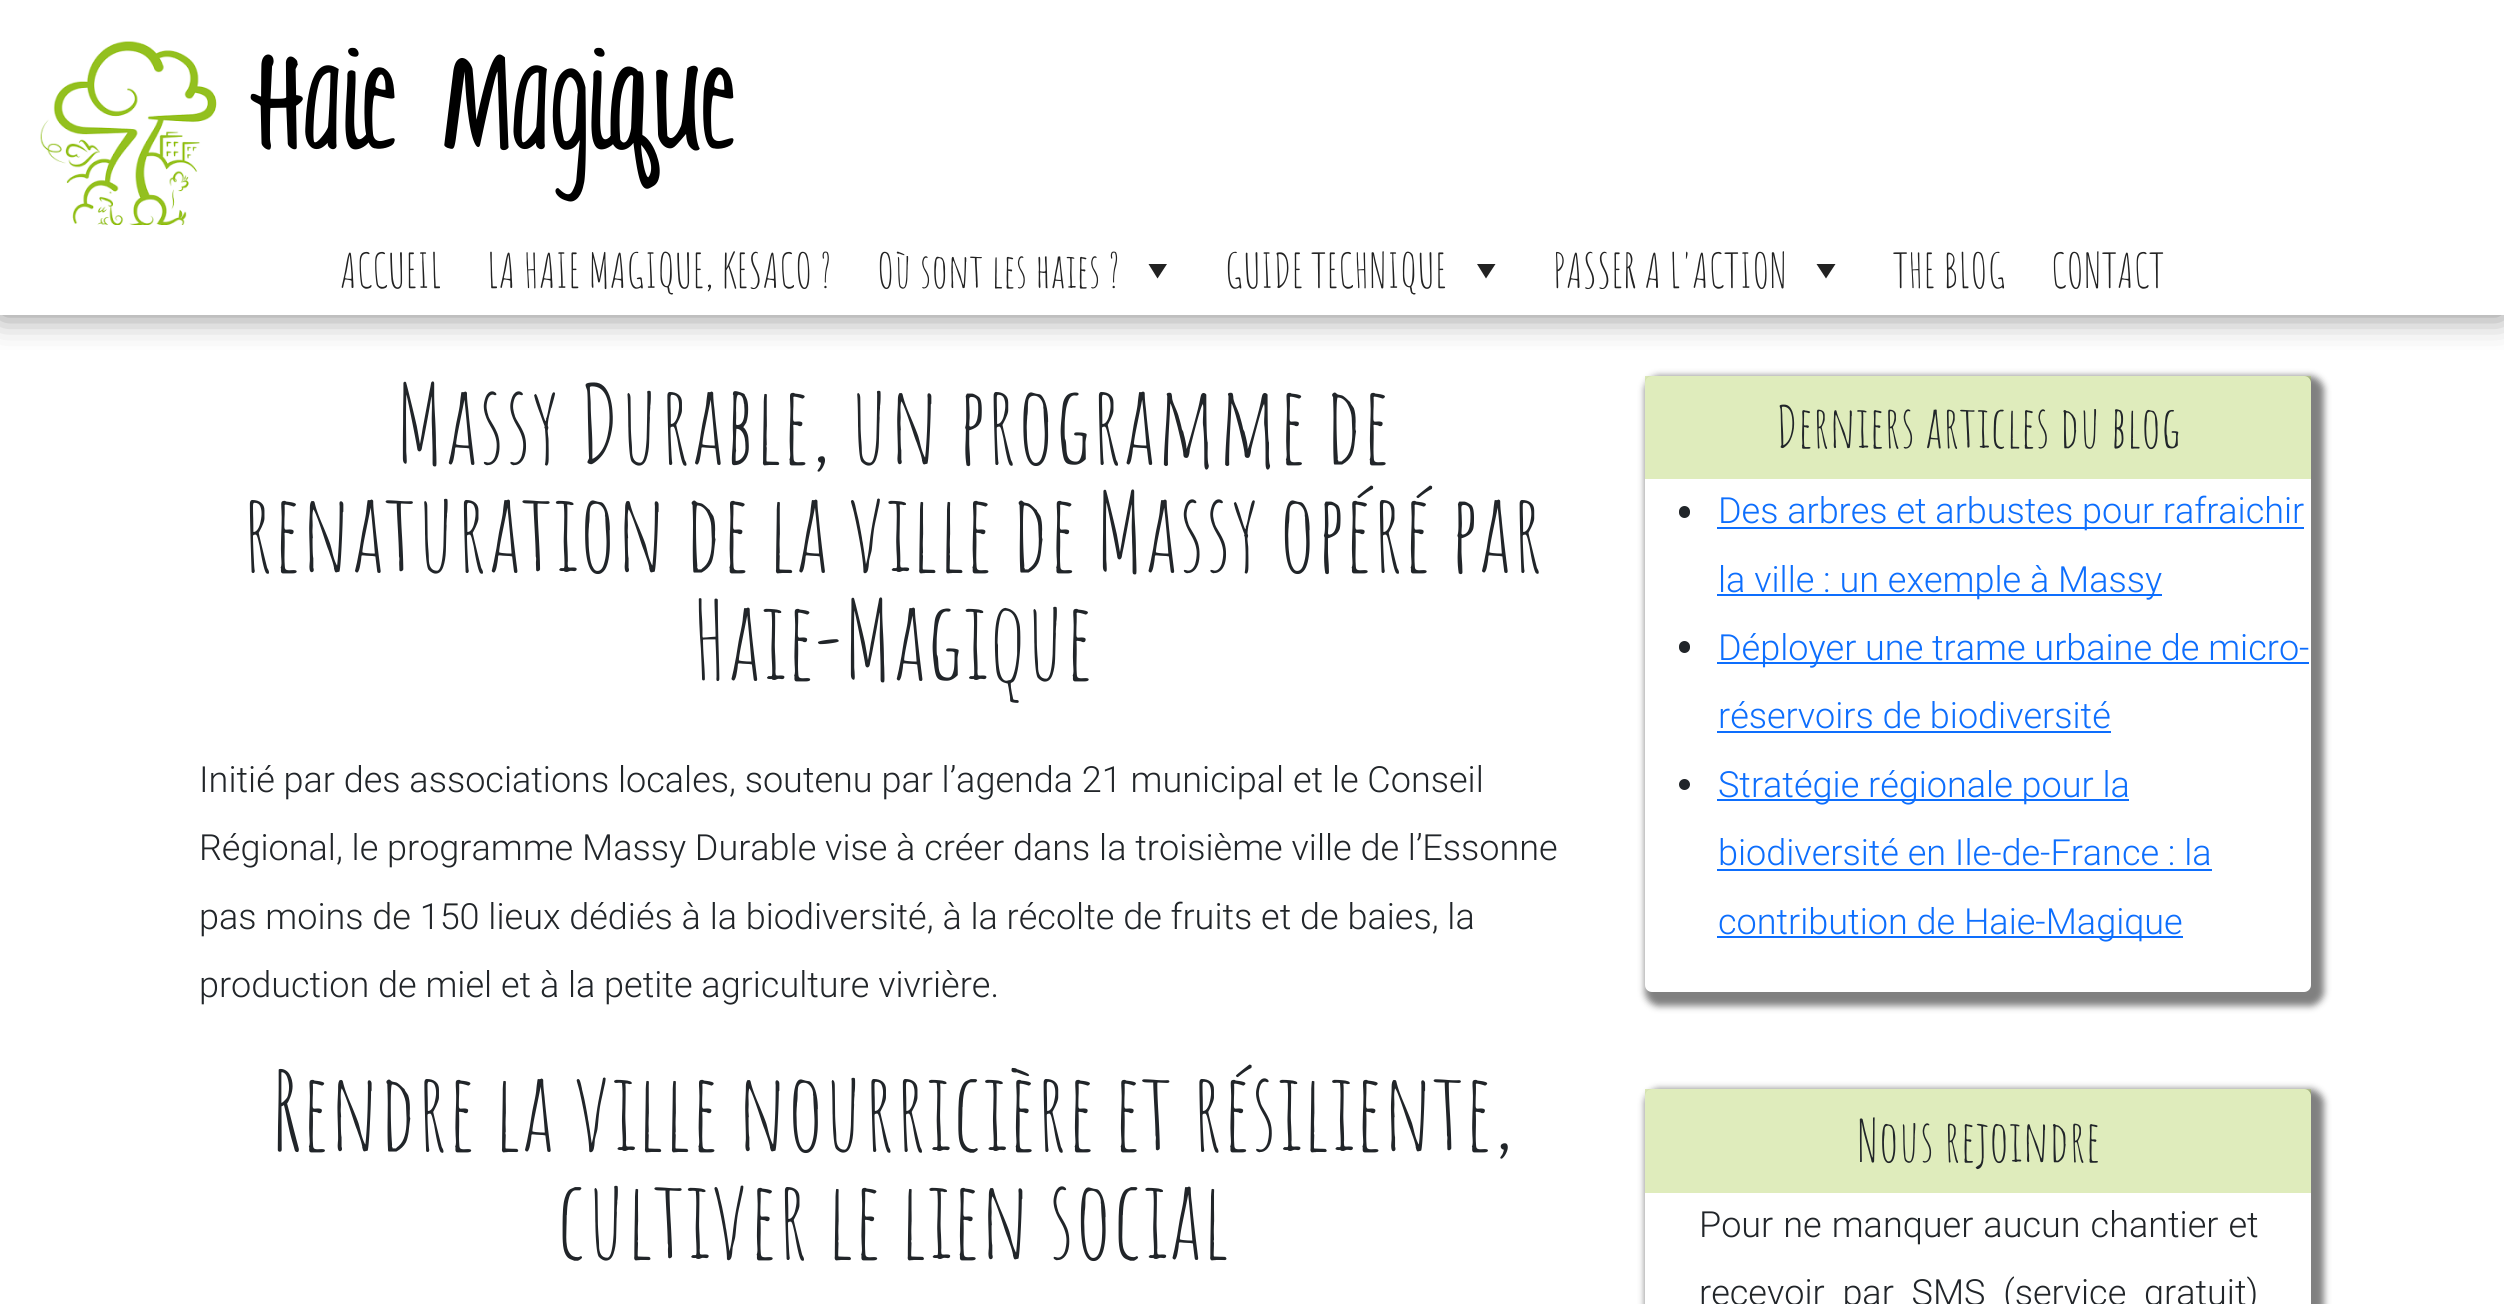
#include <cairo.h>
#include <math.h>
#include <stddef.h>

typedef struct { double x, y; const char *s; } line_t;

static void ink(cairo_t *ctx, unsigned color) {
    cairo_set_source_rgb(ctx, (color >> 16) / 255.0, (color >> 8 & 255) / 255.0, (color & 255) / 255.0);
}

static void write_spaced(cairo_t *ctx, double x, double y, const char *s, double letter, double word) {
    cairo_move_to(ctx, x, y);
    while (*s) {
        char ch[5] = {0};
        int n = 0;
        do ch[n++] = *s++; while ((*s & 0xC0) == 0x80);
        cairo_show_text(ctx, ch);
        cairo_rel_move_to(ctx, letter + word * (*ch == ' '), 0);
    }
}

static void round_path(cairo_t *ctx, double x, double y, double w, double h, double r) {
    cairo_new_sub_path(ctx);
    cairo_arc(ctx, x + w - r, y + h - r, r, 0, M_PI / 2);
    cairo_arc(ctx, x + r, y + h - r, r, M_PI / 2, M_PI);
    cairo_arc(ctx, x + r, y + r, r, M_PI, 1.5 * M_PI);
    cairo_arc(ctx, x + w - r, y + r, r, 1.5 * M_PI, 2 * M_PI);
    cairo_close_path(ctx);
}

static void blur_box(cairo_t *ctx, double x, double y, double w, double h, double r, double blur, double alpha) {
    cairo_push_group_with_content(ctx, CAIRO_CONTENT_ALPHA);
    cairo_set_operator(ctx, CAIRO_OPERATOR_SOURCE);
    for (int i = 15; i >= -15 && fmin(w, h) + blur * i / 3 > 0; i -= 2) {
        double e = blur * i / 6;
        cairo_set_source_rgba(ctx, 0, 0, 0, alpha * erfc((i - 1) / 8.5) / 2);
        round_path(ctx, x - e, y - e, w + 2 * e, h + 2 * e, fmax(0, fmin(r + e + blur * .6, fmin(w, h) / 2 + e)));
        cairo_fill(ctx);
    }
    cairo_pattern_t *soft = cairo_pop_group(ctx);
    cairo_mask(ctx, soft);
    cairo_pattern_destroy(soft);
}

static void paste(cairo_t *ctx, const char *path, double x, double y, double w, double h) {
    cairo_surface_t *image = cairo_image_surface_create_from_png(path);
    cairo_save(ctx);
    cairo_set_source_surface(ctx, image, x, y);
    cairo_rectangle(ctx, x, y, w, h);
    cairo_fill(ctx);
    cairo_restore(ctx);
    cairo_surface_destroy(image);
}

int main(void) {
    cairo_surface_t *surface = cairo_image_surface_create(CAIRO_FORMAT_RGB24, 2504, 1304);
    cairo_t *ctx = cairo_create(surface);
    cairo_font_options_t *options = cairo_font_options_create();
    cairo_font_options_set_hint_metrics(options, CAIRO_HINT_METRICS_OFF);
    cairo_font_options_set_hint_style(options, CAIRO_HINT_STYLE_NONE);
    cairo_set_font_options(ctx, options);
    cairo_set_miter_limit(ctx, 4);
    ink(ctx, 0xFFFFFF);
    cairo_paint(ctx);
    cairo_save(ctx);
    cairo_rectangle(ctx, 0, 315, 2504, 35);
    cairo_clip(ctx);
    ink(ctx, 0x808080);
    blur_box(ctx, 0, 0, 2504, 315, 0, 17, 1);
    cairo_restore(ctx);
    paste(ctx, "media/1.png", 40, 41, 177, 184);
    cairo_select_font_face(ctx, "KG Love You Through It", CAIRO_FONT_SLANT_NORMAL, CAIRO_FONT_WEIGHT_NORMAL);
    cairo_set_font_size(ctx, 108);
    ink(ctx, 0x000000);
    cairo_move_to(ctx, 257, 149);
    cairo_show_text(ctx, "Haie Magique");
    cairo_select_font_face(ctx, "Amatic SC", CAIRO_FONT_SLANT_NORMAL, CAIRO_FONT_WEIGHT_NORMAL);
    cairo_set_font_size(ctx, 47.25);
    ink(ctx, 0x222222);
    {
        static const line_t items[] = {
            {340, 288, "ACCUEIL"},
            {487, 288, "LA HAIE MAGIQUE, KESACO ?"},
            {877, 288, "Où sont les haies ?"},
        };
        for (size_t i = 0; i < sizeof items / sizeof *items; i++) {
            cairo_move_to(ctx, items[i].x, items[i].y);
            cairo_show_text(ctx, items[i].s);
        }
    }
    cairo_new_path(ctx);
    cairo_move_to(ctx, 1167, 264);
    cairo_line_to(ctx, 1157.5, 278.5);
    cairo_line_to(ctx, 1148.5, 264);
    cairo_close_path(ctx);
    cairo_fill(ctx);
    cairo_move_to(ctx, 1225, 288);
    cairo_show_text(ctx, "GUIDE TECHNIQUE");
    cairo_new_path(ctx);
    cairo_move_to(ctx, 1495.5, 264);
    cairo_line_to(ctx, 1486, 278.5);
    cairo_line_to(ctx, 1477, 264);
    cairo_close_path(ctx);
    cairo_fill(ctx);
    cairo_move_to(ctx, 1553, 288);
    cairo_show_text(ctx, "PASSER A L'ACTION");
    cairo_new_path(ctx);
    cairo_move_to(ctx, 1835.5, 264);
    cairo_line_to(ctx, 1826, 278.5);
    cairo_line_to(ctx, 1816.5, 264);
    cairo_close_path(ctx);
    cairo_fill(ctx);
    cairo_move_to(ctx, 1893, 288);
    cairo_show_text(ctx, "THE BLOG");
    cairo_move_to(ctx, 2051, 288);
    cairo_show_text(ctx, "CONTACT");
    cairo_set_font_size(ctx, 108);
    ink(ctx, 0x212529);
    {
        static const line_t items[] = {
            {395, 464, "Massy Durable, un programme de"},
            {242, 572, "renaturation de la ville de Massy opéré par"},
            {692, 680, "Haie-Magique"},
        };
        for (size_t i = 0; i < sizeof items / sizeof *items; i++) {
            cairo_move_to(ctx, items[i].x, items[i].y);
            cairo_show_text(ctx, items[i].s);
        }
    }
    cairo_select_font_face(ctx, "Roboto Light", CAIRO_FONT_SLANT_NORMAL, CAIRO_FONT_WEIGHT_NORMAL);
    cairo_set_font_size(ctx, 36);
    {
        static const line_t items[] = {
            {199, 792, "Initié par des associations locales, soutenu par l’agenda 21 municipal et le Conseil"},
            {199, 860, "Régional, le programme Massy Durable vise à créer dans la troisième ville de l’Essonne"},
            {199, 929, "pas moins de 150 lieux dédiés à la biodiversité, à la récolte de fruits et de baies, la"},
            {199, 997, "production de miel et à la petite agriculture vivrière."},
        };
        for (size_t i = 0; i < sizeof items / sizeof *items; i++) {
            cairo_move_to(ctx, items[i].x, items[i].y);
            cairo_show_text(ctx, items[i].s);
        }
    }
    cairo_select_font_face(ctx, "Amatic SC", CAIRO_FONT_SLANT_NORMAL, CAIRO_FONT_WEIGHT_NORMAL);
    cairo_set_font_size(ctx, 108);
    cairo_move_to(ctx, 271, 1151);
    cairo_show_text(ctx, "Rendre la ville nourricière et résiliente,");
    cairo_move_to(ctx, 556, 1259);
    cairo_show_text(ctx, "cultiver le lien social");
    ink(ctx, 0x808080);
    blur_box(ctx, 1645, 376, 679, 630, 14, 3.5, 1);
    ink(ctx, 0xFFFFFF);
    round_path(ctx, 1645, 376, 666, 616, 7);
    cairo_fill(ctx);
    cairo_set_source_rgba(ctx, 0.576, 0.753, 0.122, 0.3);
    cairo_rectangle(ctx, 1645, 376, 666, 103);
    cairo_fill(ctx);
    cairo_set_font_size(ctx, 57.5);
    ink(ctx, 0x212529);
    cairo_move_to(ctx, 1776, 448);
    cairo_show_text(ctx, "Derniers articles du blog");
    round_path(ctx, 1679, 506, 11, 12, 5.5);
    cairo_fill(ctx);
    ink(ctx, 0x0D6EFD);
    cairo_rectangle(ctx, 1717, 527, 587, 2);
    cairo_fill(ctx);
    cairo_select_font_face(ctx, "Roboto Light", CAIRO_FONT_SLANT_NORMAL, CAIRO_FONT_WEIGHT_NORMAL);
    cairo_set_font_size(ctx, 36);
    cairo_move_to(ctx, 1718, 523);
    cairo_show_text(ctx, "Des arbres et arbustes pour rafraichir");
    cairo_rectangle(ctx, 1717, 594, 445, 2);
    cairo_fill(ctx);
    cairo_move_to(ctx, 1718, 592);
    cairo_show_text(ctx, "la ville : un exemple à Massy");
    ink(ctx, 0x212529);
    round_path(ctx, 1679, 641, 11, 12, 5.5);
    cairo_fill(ctx);
    ink(ctx, 0x0D6EFD);
    cairo_rectangle(ctx, 1717, 662, 592, 2);
    cairo_fill(ctx);
    cairo_move_to(ctx, 1718, 660);
    cairo_show_text(ctx, "Déployer une trame urbaine de micro-");
    cairo_move_to(ctx, 1718, 728);
    cairo_show_text(ctx, "réservoirs de biodiversité");
    cairo_rectangle(ctx, 1717, 731, 394, 2);
    cairo_fill(ctx);
    ink(ctx, 0x212529);
    cairo_arc(ctx, 1684.5, 784.5, 5.5, 0, 2 * M_PI);
    cairo_fill(ctx);
    ink(ctx, 0x0D6EFD);
    cairo_rectangle(ctx, 1717, 799, 412, 2);
    cairo_fill(ctx);
    cairo_move_to(ctx, 1718, 797);
    cairo_show_text(ctx, "Stratégie régionale pour la");
    cairo_move_to(ctx, 1718, 865);
    cairo_show_text(ctx, "biodiversité en Ile-de-France : la");
    cairo_rectangle(ctx, 1717, 869, 495, 2);
    cairo_fill(ctx);
    cairo_rectangle(ctx, 1717, 936, 466, 2);
    cairo_fill(ctx);
    cairo_move_to(ctx, 1718, 934);
    cairo_show_text(ctx, "contribution de Haie-Magique");
    ink(ctx, 0x808080);
    blur_box(ctx, 1645, 1089, 679, 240, 14, 3.5, 1);
    ink(ctx, 0xFFFFFF);
    round_path(ctx, 1645, 1089, 666, 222, 7);
    cairo_fill(ctx);
    cairo_set_source_rgba(ctx, 0.576, 0.753, 0.122, 0.3);
    cairo_rectangle(ctx, 1645, 1089, 666, 104);
    cairo_fill(ctx);
    cairo_select_font_face(ctx, "Amatic SC", CAIRO_FONT_SLANT_NORMAL, CAIRO_FONT_WEIGHT_NORMAL);
    cairo_set_font_size(ctx, 57.5);
    ink(ctx, 0x212529);
    cairo_move_to(ctx, 1857, 1162);
    cairo_show_text(ctx, "Nous rejoindre");
    cairo_select_font_face(ctx, "Roboto Light", CAIRO_FONT_SLANT_NORMAL, CAIRO_FONT_WEIGHT_NORMAL);
    cairo_set_font_size(ctx, 36);
    write_spaced(ctx, 1699, 1237, "Pour ne manquer aucun chantier et", 0, 1.25);
    write_spaced(ctx, 1699, 1305, "recevoir par SMS (service gratuit)", 0, 9);
    cairo_surface_write_to_png(surface, "image.png");
    cairo_font_options_destroy(options);
    cairo_destroy(ctx);
    cairo_surface_destroy(surface);
    return 0;
}
